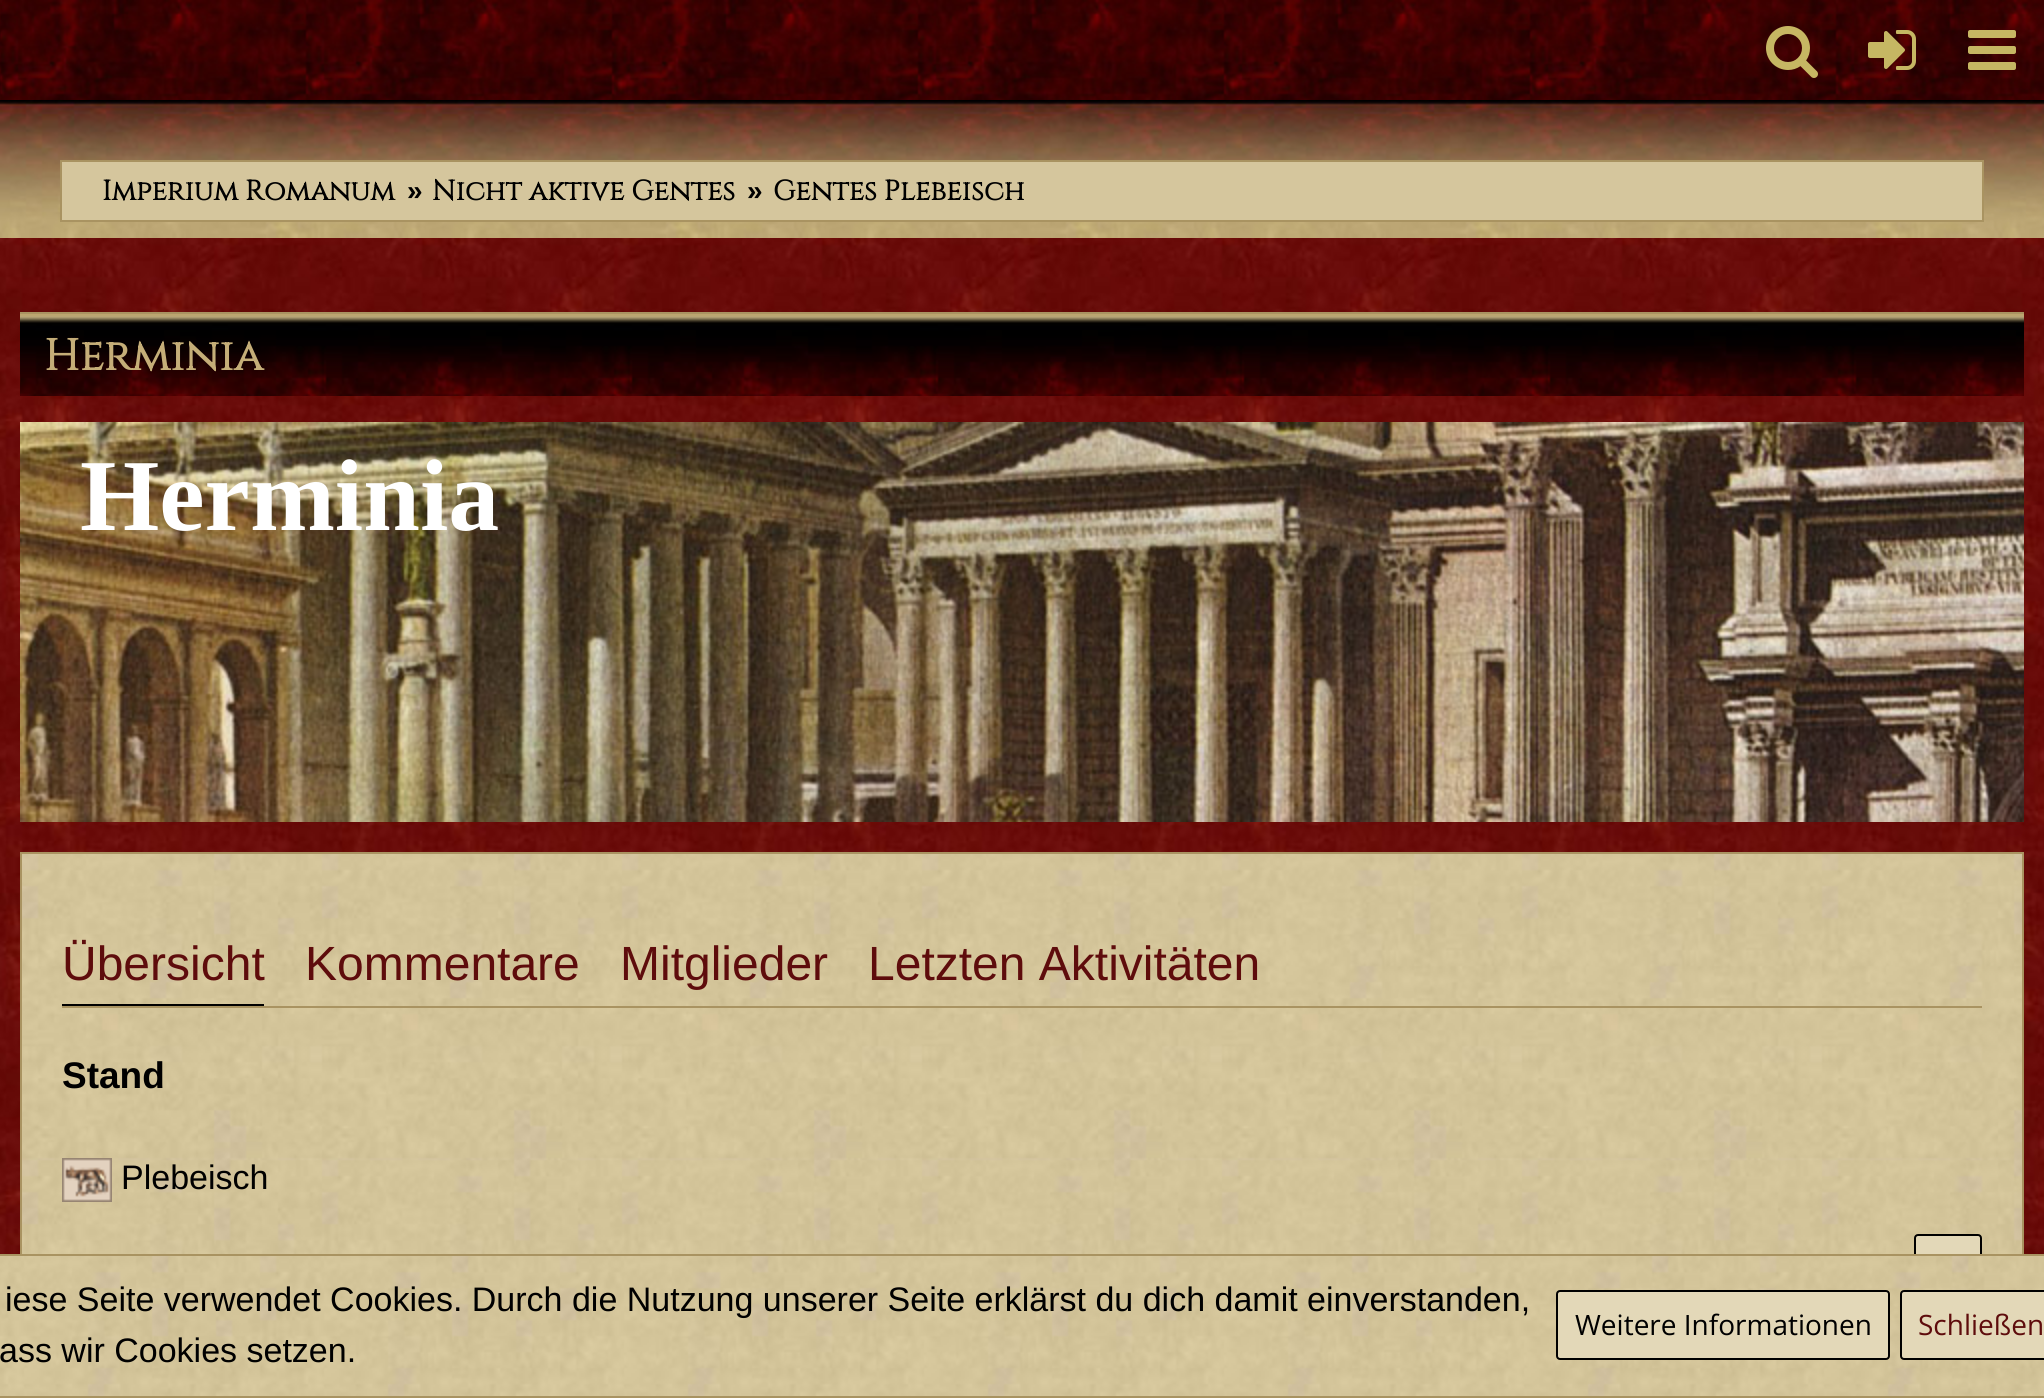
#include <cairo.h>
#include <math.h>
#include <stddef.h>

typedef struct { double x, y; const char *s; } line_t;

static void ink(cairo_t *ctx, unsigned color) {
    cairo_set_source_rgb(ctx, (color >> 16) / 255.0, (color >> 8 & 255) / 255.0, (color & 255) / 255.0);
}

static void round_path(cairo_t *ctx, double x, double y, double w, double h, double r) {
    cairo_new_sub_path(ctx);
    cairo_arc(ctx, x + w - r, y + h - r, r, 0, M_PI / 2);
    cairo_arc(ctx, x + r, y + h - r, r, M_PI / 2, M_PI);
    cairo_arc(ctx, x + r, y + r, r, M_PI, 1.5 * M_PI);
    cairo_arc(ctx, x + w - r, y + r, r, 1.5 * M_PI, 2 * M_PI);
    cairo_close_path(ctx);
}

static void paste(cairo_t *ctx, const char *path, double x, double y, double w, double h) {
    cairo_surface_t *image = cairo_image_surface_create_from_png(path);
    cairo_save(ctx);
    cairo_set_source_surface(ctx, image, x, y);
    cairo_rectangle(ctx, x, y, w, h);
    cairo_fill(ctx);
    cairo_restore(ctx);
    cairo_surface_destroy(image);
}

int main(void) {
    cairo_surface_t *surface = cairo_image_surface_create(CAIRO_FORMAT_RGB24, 2044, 1398);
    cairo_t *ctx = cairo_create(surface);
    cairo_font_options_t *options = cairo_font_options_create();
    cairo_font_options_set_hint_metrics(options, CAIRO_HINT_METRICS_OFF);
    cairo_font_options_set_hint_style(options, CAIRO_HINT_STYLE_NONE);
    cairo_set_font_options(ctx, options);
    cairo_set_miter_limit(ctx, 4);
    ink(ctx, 0xFFFFFF);
    cairo_paint(ctx);
    paste(ctx, "media/1.png", 0, 238, 2044, 1016);
    paste(ctx, "media/2.png", 0, 0, 2044, 100);
    paste(ctx, "media/3.png", 1766, 26, 52, 52);
    paste(ctx, "media/4.png", 1868, 30, 48, 40);
    paste(ctx, "media/5.png", 1968, 30, 48, 40);
    paste(ctx, "media/6.png", 0, 100, 2044, 138);
    ink(ctx, 0xD5C69D);
    cairo_rectangle(ctx, 61, 161, 1922, 60);
    cairo_fill_preserve(ctx);
    ink(ctx, 0xA99361);
    cairo_stroke(ctx);
    cairo_select_font_face(ctx, "Cinzel", CAIRO_FONT_SLANT_NORMAL, CAIRO_FONT_WEIGHT_BOLD);
    cairo_set_font_size(ctx, 28);
    ink(ctx, 0x000000);
    cairo_move_to(ctx, 102, 200);
    cairo_show_text(ctx, "Imperium Romanum");
    cairo_select_font_face(ctx, "Liberation Sans", CAIRO_FONT_SLANT_NORMAL, CAIRO_FONT_WEIGHT_BOLD);
    cairo_move_to(ctx, 407, 200);
    cairo_show_text(ctx, "»");
    cairo_select_font_face(ctx, "Cinzel", CAIRO_FONT_SLANT_NORMAL, CAIRO_FONT_WEIGHT_BOLD);
    cairo_move_to(ctx, 432, 200);
    cairo_show_text(ctx, "Nicht aktive Gentes");
    cairo_select_font_face(ctx, "Liberation Sans", CAIRO_FONT_SLANT_NORMAL, CAIRO_FONT_WEIGHT_BOLD);
    cairo_move_to(ctx, 747, 200);
    cairo_show_text(ctx, "»");
    cairo_select_font_face(ctx, "Cinzel", CAIRO_FONT_SLANT_NORMAL, CAIRO_FONT_WEIGHT_BOLD);
    cairo_move_to(ctx, 773, 200);
    cairo_show_text(ctx, "Gentes Plebeisch");
    paste(ctx, "media/7.png", 20, 314, 2004, 82);
    ink(ctx, 0xA99361);
    cairo_rectangle(ctx, 20, 312, 2004, 2);
    cairo_fill(ctx);
    cairo_set_font_size(ctx, 44);
    ink(ctx, 0xC5AE78);
    cairo_move_to(ctx, 44, 370);
    cairo_show_text(ctx, "Herminia");
    paste(ctx, "media/8.png", 20, 422, 2004, 400);
    cairo_select_font_face(ctx, "Liberation Serif", CAIRO_FONT_SLANT_NORMAL, CAIRO_FONT_WEIGHT_BOLD);
    cairo_set_font_size(ctx, 102);
    ink(ctx, 0xFFFFFF);
    cairo_move_to(ctx, 80, 530);
    cairo_show_text(ctx, "Herminia");
    paste(ctx, "media/9.png", 22, 854, 2000, 400);
    cairo_rectangle(ctx, 21, 853, 2002, 502);
    ink(ctx, 0xA99361);
    cairo_stroke(ctx);
    cairo_rectangle(ctx, 62, 1006, 1920, 2);
    cairo_fill(ctx);
    cairo_select_font_face(ctx, "Liberation Sans", CAIRO_FONT_SLANT_NORMAL, CAIRO_FONT_WEIGHT_NORMAL);
    cairo_set_font_size(ctx, 48);
    ink(ctx, 0x5E0C0C);
    cairo_move_to(ctx, 62, 980);
    cairo_show_text(ctx, "Übersicht");
    ink(ctx, 0x000000);
    cairo_rectangle(ctx, 62, 1004, 202, 2);
    cairo_fill(ctx);
    ink(ctx, 0x5E0C0C);
    {
        static const line_t items[] = {
            {305, 980, "Kommentare"},
            {620, 980, "Mitglieder"},
            {868, 980, "Letzten Aktivitäten"},
        };
        for (size_t i = 0; i < sizeof items / sizeof *items; i++) {
            cairo_move_to(ctx, items[i].x, items[i].y);
            cairo_show_text(ctx, items[i].s);
        }
    }
    cairo_select_font_face(ctx, "Liberation Sans", CAIRO_FONT_SLANT_NORMAL, CAIRO_FONT_WEIGHT_BOLD);
    cairo_set_font_size(ctx, 37);
    ink(ctx, 0x000000);
    cairo_move_to(ctx, 62, 1088);
    cairo_show_text(ctx, "Stand");
    paste(ctx, "media/10.png", 62, 1158, 50, 44);
    cairo_select_font_face(ctx, "Liberation Sans", CAIRO_FONT_SLANT_NORMAL, CAIRO_FONT_WEIGHT_NORMAL);
    cairo_set_font_size(ctx, 34);
    cairo_move_to(ctx, 121, 1189);
    cairo_show_text(ctx, "Plebeisch");
    ink(ctx, 0xE3D8B8);
    round_path(ctx, 1915, 1235, 66, 66, 3);
    cairo_fill_preserve(ctx);
    ink(ctx, 0x000000);
    cairo_stroke(ctx);
    paste(ctx, "media/11.png", 0, 1256, 2044, 140);
    ink(ctx, 0xA99361);
    cairo_rectangle(ctx, 0, 1254, 2044, 2);
    cairo_fill(ctx);
    cairo_rectangle(ctx, 0, 1396, 2044, 2);
    cairo_fill(ctx);
    ink(ctx, 0x000000);
    cairo_move_to(ctx, 5, 1311);
    cairo_show_text(ctx, "iese Seite verwendet Cookies. Durch die Nutzung unserer Seite erklärst du dich damit einverstanden,");
    cairo_move_to(ctx, -1, 1362);
    cairo_show_text(ctx, "ass wir Cookies setzen.");
    ink(ctx, 0xE3D8B8);
    round_path(ctx, 1557, 1291, 332, 68, 3);
    cairo_fill_preserve(ctx);
    ink(ctx, 0x000000);
    cairo_stroke(ctx);
    cairo_select_font_face(ctx, "Open Sans", CAIRO_FONT_SLANT_NORMAL, CAIRO_FONT_WEIGHT_NORMAL);
    cairo_set_font_size(ctx, 28);
    cairo_move_to(ctx, 1575, 1335);
    cairo_show_text(ctx, "Weitere Informationen");
    ink(ctx, 0xE3D8B8);
    round_path(ctx, 1901, 1291, 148, 68, 3);
    cairo_fill_preserve(ctx);
    ink(ctx, 0x000000);
    cairo_stroke(ctx);
    ink(ctx, 0x5E0C0C);
    cairo_move_to(ctx, 1918, 1335);
    cairo_show_text(ctx, "Schließen");
    cairo_surface_write_to_png(surface, "image.png");
    cairo_font_options_destroy(options);
    cairo_destroy(ctx);
    cairo_surface_destroy(surface);
    return 0;
}
